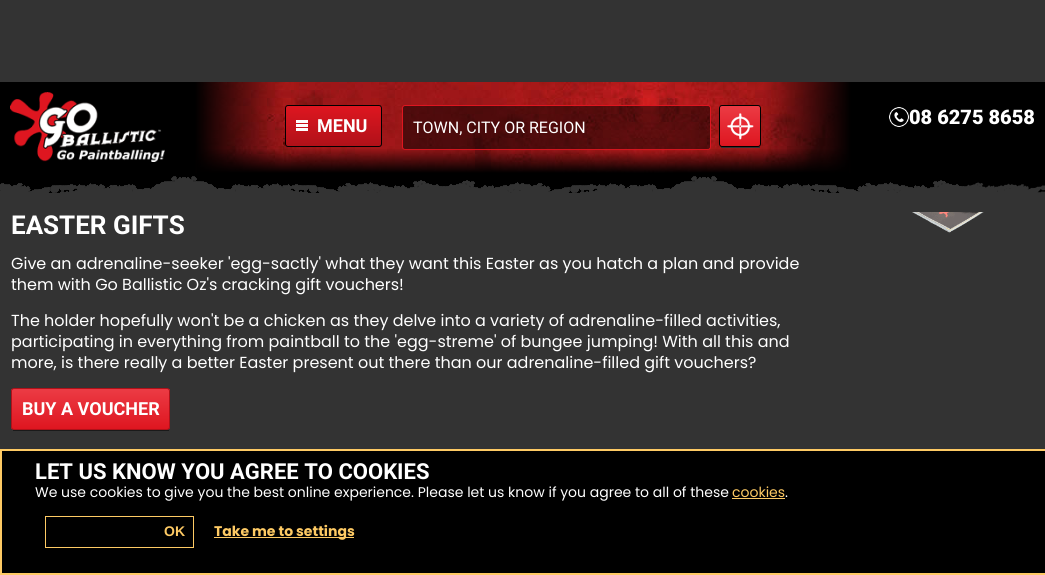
#include <cairo.h>
#include <math.h>
#include <stddef.h>

typedef struct { double x, y; const char *s; } line_t;
typedef struct { double x, y, w, h; unsigned color; } box_t;

static void ink(cairo_t *ctx, unsigned color) {
    cairo_set_source_rgb(ctx, (color >> 16) / 255.0, (color >> 8 & 255) / 255.0, (color & 255) / 255.0);
}

static void round_path(cairo_t *ctx, double x, double y, double w, double h, double r) {
    cairo_new_sub_path(ctx);
    cairo_arc(ctx, x + w - r, y + h - r, r, 0, M_PI / 2);
    cairo_arc(ctx, x + r, y + h - r, r, M_PI / 2, M_PI);
    cairo_arc(ctx, x + r, y + r, r, M_PI, 1.5 * M_PI);
    cairo_arc(ctx, x + w - r, y + r, r, 1.5 * M_PI, 2 * M_PI);
    cairo_close_path(ctx);
}

static void paste(cairo_t *ctx, const char *path, double x, double y, double w, double h) {
    cairo_surface_t *image = cairo_image_surface_create_from_png(path);
    cairo_save(ctx);
    cairo_set_source_surface(ctx, image, x, y);
    cairo_rectangle(ctx, x, y, w, h);
    cairo_fill(ctx);
    cairo_restore(ctx);
    cairo_surface_destroy(image);
}

int main(void) {
    cairo_surface_t *surface = cairo_image_surface_create(CAIRO_FORMAT_RGB24, 1045, 575);
    cairo_t *ctx = cairo_create(surface);
    cairo_font_options_t *options = cairo_font_options_create();
    cairo_font_options_set_hint_metrics(options, CAIRO_HINT_METRICS_OFF);
    cairo_font_options_set_hint_style(options, CAIRO_HINT_STYLE_NONE);
    cairo_set_font_options(ctx, options);
    cairo_set_miter_limit(ctx, 4);
    cairo_pattern_t *gradient;
    ink(ctx, 0x333333);
    cairo_paint(ctx);
    ink(ctx, 0x000000);
    cairo_rectangle(ctx, 0, 82, 1045, 91);
    cairo_fill(ctx);
    paste(ctx, "media/1.png", 10, 92, 155, 70);
    paste(ctx, "media/2.png", 889, 107, 20, 20);
    cairo_select_font_face(ctx, "Roboto Black", CAIRO_FONT_SLANT_NORMAL, CAIRO_FONT_WEIGHT_NORMAL);
    cairo_set_font_size(ctx, 20);
    ink(ctx, 0xFFFFFF);
    cairo_move_to(ctx, 909, 124);
    cairo_show_text(ctx, "08 6275 8658");
    paste(ctx, "media/3.png", 195, 82, 656, 91);
    cairo_save(ctx);
    round_path(ctx, 285, 105, 97, 42, 3);
    cairo_clip(ctx);
    gradient = cairo_pattern_create_linear(334, 106, 334, 146);
    cairo_pattern_add_color_stop_rgba(gradient, 0, 0.871, 0.086, 0.125, 1);
    cairo_pattern_add_color_stop_rgba(gradient, 1, 0.69, 0.067, 0.098, 1);
    cairo_set_source(ctx, gradient);
    cairo_pattern_destroy(gradient);
    cairo_rectangle(ctx, 285, 106, 97, 40);
    cairo_fill(ctx);
    cairo_restore(ctx);
    round_path(ctx, 285.5, 105.5, 96, 41, 2.5);
    ink(ctx, 0x000000);
    cairo_set_line_width(ctx, 1);
    cairo_stroke(ctx);
    {
        static const box_t items[] = {
            {296, 120, 12, 3, 0xFFFFFF},
            {296, 124, 12, 3, 0xFFFFFF},
            {296, 128, 12, 3, 0xFFFFFF},
        };
        for (size_t i = 0; i < sizeof items / sizeof *items; i++) {
            ink(ctx, items[i].color);
            cairo_rectangle(ctx, items[i].x, items[i].y, items[i].w, items[i].h);
            cairo_fill(ctx);
        }
    }
    cairo_select_font_face(ctx, "Roboto", CAIRO_FONT_SLANT_NORMAL, CAIRO_FONT_WEIGHT_BOLD);
    cairo_set_font_size(ctx, 18);
    cairo_move_to(ctx, 317, 132);
    cairo_show_text(ctx, "MENU");
    cairo_set_source_rgba(ctx, 0, 0, 0, 0.5);
    round_path(ctx, 402.5, 105.5, 308, 44, 2.5);
    cairo_fill_preserve(ctx);
    ink(ctx, 0xDE1620);
    cairo_stroke(ctx);
    cairo_select_font_face(ctx, "Roboto", CAIRO_FONT_SLANT_NORMAL, CAIRO_FONT_WEIGHT_NORMAL);
    cairo_set_font_size(ctx, 16);
    ink(ctx, 0xFFFFFF);
    cairo_move_to(ctx, 413, 133);
    cairo_show_text(ctx, "TOWN, CITY OR REGION");
    ink(ctx, 0x333333);
    cairo_rectangle(ctx, 721, 147, 39, 1);
    cairo_fill(ctx);
    cairo_save(ctx);
    round_path(ctx, 719, 105, 42, 42, 3);
    cairo_clip(ctx);
    gradient = cairo_pattern_create_linear(740, 106, 740, 146);
    cairo_pattern_add_color_stop_rgba(gradient, 0, 0.925, 0.231, 0.267, 1);
    cairo_pattern_add_color_stop_rgba(gradient, 1, 0.871, 0.086, 0.125, 1);
    cairo_set_source(ctx, gradient);
    cairo_pattern_destroy(gradient);
    cairo_rectangle(ctx, 719, 106, 42, 40);
    cairo_fill(ctx);
    cairo_restore(ctx);
    round_path(ctx, 719.5, 105.5, 41, 41, 2.5);
    ink(ctx, 0x000000);
    cairo_stroke(ctx);
    paste(ctx, "media/4.png", 727, 113, 27, 27);
    gradient = cairo_pattern_create_linear(523, 148, 523, 173);
    cairo_pattern_add_color_stop_rgba(gradient, 0, 0, 0, 0, 0);
    cairo_pattern_add_color_stop_rgba(gradient, 1, 0, 0, 0, 1);
    cairo_set_source(ctx, gradient);
    cairo_pattern_destroy(gradient);
    cairo_rectangle(ctx, 197, 149, 652, 24);
    cairo_fill(ctx);
    paste(ctx, "media/5.png", 0, 173, 1045, 20);
    cairo_select_font_face(ctx, "Roboto", CAIRO_FONT_SLANT_NORMAL, CAIRO_FONT_WEIGHT_BOLD);
    cairo_set_font_size(ctx, 26);
    ink(ctx, 0xFFFFFF);
    cairo_move_to(ctx, 11, 234);
    cairo_show_text(ctx, "EASTER GIFTS");
    paste(ctx, "media/6.png", 912, 212, 72, 21);
    cairo_select_font_face(ctx, "Poppins", CAIRO_FONT_SLANT_NORMAL, CAIRO_FONT_WEIGHT_NORMAL);
    cairo_set_font_size(ctx, 16);
    {
        static const line_t items[] = {
            {11, 269, "Give an adrenaline-seeker 'egg-sactly' what they want this Easter as you hatch a plan and provide"},
            {11, 290, "them with Go Ballistic Oz's cracking gift vouchers!"},
            {11, 326, "The holder hopefully won't be a chicken as they delve into a variety of adrenaline-filled activities,"},
            {11, 347, "participating in everything from paintball to the 'egg-streme' of bungee jumping! With all this and"},
            {11, 368, "more, is there really a better Easter present out there than our adrenaline-filled gift vouchers?"},
        };
        for (size_t i = 0; i < sizeof items / sizeof *items; i++) {
            cairo_move_to(ctx, items[i].x, items[i].y);
            cairo_show_text(ctx, items[i].s);
        }
    }
    ink(ctx, 0x1A1A1A);
    cairo_rectangle(ctx, 13, 430, 156, 1);
    cairo_fill(ctx);
    cairo_save(ctx);
    round_path(ctx, 11, 388, 159, 42, 3);
    cairo_clip(ctx);
    gradient = cairo_pattern_create_linear(91, 389, 91, 429);
    cairo_pattern_add_color_stop_rgba(gradient, 0, 0.925, 0.231, 0.267, 1);
    cairo_pattern_add_color_stop_rgba(gradient, 1, 0.871, 0.086, 0.125, 1);
    cairo_set_source(ctx, gradient);
    cairo_pattern_destroy(gradient);
    cairo_rectangle(ctx, 11, 389, 159, 40);
    cairo_fill(ctx);
    cairo_restore(ctx);
    round_path(ctx, 11.5, 388.5, 158, 41, 2.5);
    ink(ctx, 0xB01119);
    cairo_stroke(ctx);
    cairo_select_font_face(ctx, "Roboto", CAIRO_FONT_SLANT_NORMAL, CAIRO_FONT_WEIGHT_BOLD);
    cairo_set_font_size(ctx, 18);
    ink(ctx, 0xFFFFFF);
    cairo_move_to(ctx, 22, 415);
    cairo_show_text(ctx, "BUY A VOUCHER");
    ink(ctx, 0x000000);
    cairo_rectangle(ctx, 1, 450, 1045, 124);
    cairo_fill_preserve(ctx);
    ink(ctx, 0xFECA64);
    cairo_set_line_width(ctx, 2);
    cairo_stroke(ctx);
    cairo_set_font_size(ctx, 22);
    ink(ctx, 0xFFFFFF);
    cairo_move_to(ctx, 35, 479);
    cairo_show_text(ctx, "LET US KNOW YOU AGREE TO COOKIES");
    cairo_select_font_face(ctx, "Poppins", CAIRO_FONT_SLANT_NORMAL, CAIRO_FONT_WEIGHT_NORMAL);
    cairo_set_font_size(ctx, 14);
    cairo_move_to(ctx, 35, 497);
    cairo_show_text(ctx, "We use cookies to give you the best online experience. Please let us know if you agree to all of these");
    ink(ctx, 0xFECA64);
    cairo_move_to(ctx, 732, 497);
    cairo_show_text(ctx, "cookies");
    cairo_rectangle(ctx, 732, 498, 53, 1);
    cairo_fill(ctx);
    ink(ctx, 0xFFFFFF);
    cairo_move_to(ctx, 785, 497);
    cairo_show_text(ctx, ".");
    cairo_rectangle(ctx, 45.5, 516.5, 148, 31);
    ink(ctx, 0xFECA64);
    cairo_set_line_width(ctx, 1);
    cairo_stroke(ctx);
    cairo_select_font_face(ctx, "Liberation Sans", CAIRO_FONT_SLANT_NORMAL, CAIRO_FONT_WEIGHT_BOLD);
    cairo_move_to(ctx, 164, 536);
    cairo_show_text(ctx, "OK");
    cairo_rectangle(ctx, 214, 537, 140, 1);
    cairo_fill(ctx);
    cairo_select_font_face(ctx, "Poppins", CAIRO_FONT_SLANT_NORMAL, CAIRO_FONT_WEIGHT_BOLD);
    cairo_move_to(ctx, 214, 536);
    cairo_show_text(ctx, "Take me to settings");
    cairo_surface_write_to_png(surface, "image.png");
    cairo_font_options_destroy(options);
    cairo_destroy(ctx);
    cairo_surface_destroy(surface);
    return 0;
}
